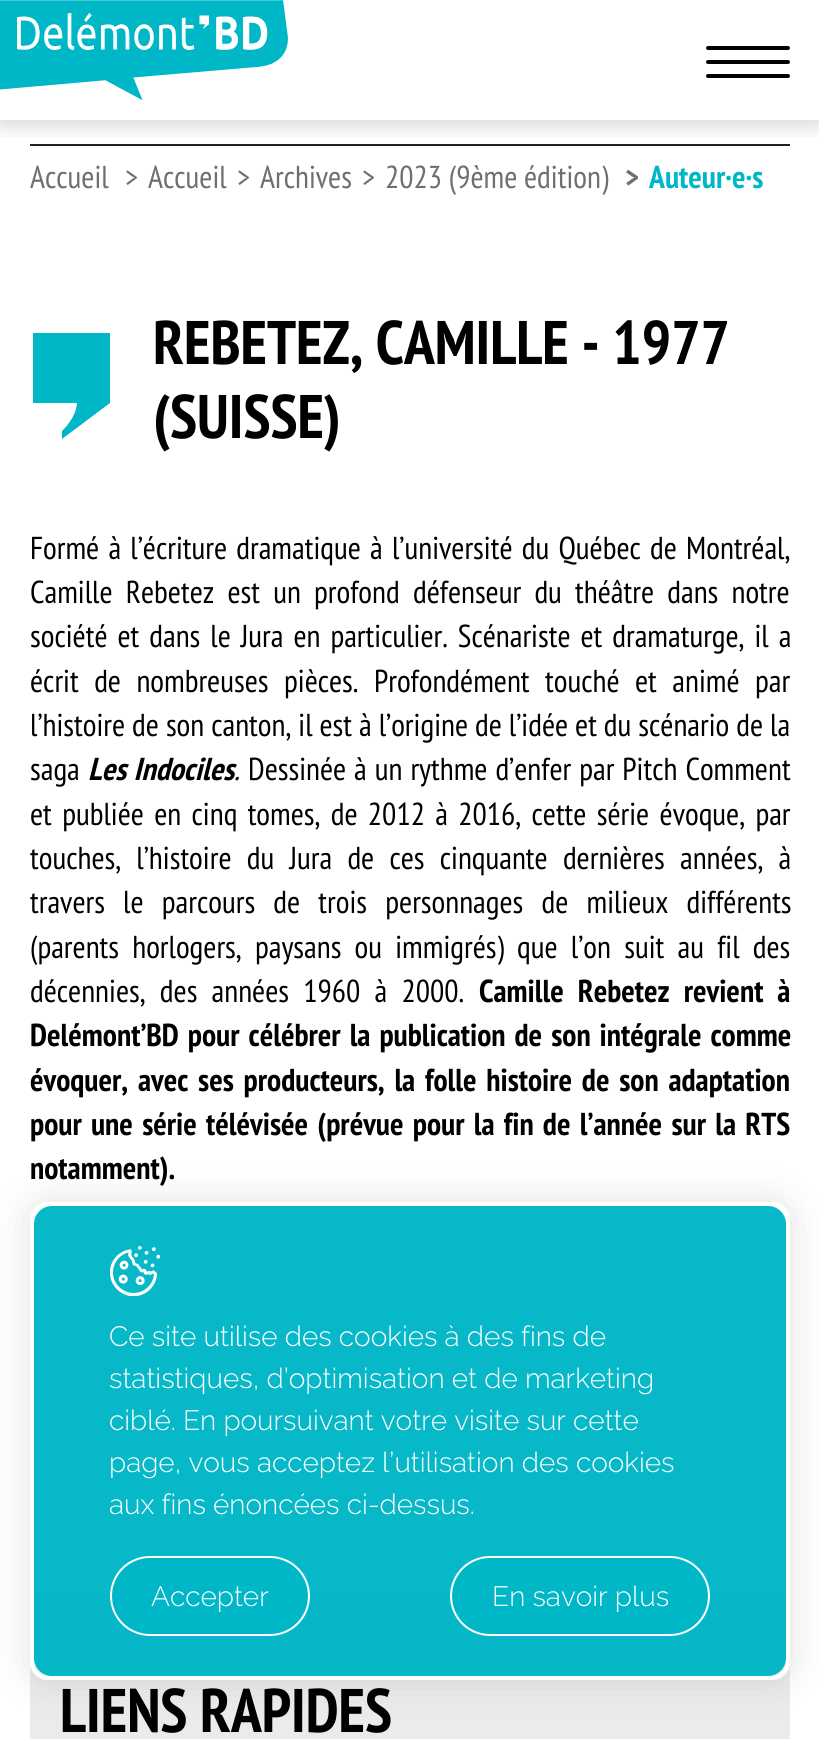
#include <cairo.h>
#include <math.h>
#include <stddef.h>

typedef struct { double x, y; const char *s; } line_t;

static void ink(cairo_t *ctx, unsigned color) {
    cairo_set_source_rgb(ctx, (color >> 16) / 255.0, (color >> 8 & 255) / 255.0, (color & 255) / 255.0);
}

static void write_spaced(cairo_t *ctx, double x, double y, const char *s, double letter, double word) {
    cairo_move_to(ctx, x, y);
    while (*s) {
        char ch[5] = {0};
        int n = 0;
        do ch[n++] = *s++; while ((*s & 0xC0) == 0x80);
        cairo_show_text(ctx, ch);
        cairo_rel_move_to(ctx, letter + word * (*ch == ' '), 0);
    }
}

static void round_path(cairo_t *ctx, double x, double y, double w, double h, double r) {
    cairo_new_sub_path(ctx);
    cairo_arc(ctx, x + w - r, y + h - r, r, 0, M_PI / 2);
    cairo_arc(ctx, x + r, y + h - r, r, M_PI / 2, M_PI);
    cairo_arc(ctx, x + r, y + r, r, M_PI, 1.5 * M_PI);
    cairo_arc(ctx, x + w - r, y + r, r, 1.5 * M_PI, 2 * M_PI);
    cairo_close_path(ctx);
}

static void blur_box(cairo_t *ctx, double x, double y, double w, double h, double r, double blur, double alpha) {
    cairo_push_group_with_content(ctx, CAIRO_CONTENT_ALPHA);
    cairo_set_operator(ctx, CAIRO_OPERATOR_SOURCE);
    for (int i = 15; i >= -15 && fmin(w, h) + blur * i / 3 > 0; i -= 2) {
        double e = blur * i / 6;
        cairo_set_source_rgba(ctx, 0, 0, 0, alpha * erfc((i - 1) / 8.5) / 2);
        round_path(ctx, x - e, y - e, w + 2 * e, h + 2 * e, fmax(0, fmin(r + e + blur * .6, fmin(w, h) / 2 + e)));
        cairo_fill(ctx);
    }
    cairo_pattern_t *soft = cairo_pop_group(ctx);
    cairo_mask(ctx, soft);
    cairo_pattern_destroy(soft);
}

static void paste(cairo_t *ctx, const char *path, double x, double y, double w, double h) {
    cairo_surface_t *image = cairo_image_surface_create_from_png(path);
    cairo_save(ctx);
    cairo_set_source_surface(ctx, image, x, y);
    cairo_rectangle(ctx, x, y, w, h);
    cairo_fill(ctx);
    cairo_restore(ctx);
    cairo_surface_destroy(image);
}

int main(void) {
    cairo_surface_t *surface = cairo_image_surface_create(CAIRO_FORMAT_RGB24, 819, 1739);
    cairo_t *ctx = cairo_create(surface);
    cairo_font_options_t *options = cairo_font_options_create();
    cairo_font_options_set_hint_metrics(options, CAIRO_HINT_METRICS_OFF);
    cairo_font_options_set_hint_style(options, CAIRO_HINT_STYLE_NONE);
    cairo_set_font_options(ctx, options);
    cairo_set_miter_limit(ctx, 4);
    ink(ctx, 0xFFFFFF);
    cairo_paint(ctx);
    ink(ctx, 0x231F20);
    cairo_rectangle(ctx, 30, 144, 760, 2);
    cairo_fill(ctx);
    cairo_save(ctx);
    cairo_rectangle(ctx, 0, 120, 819, 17);
    cairo_clip(ctx);
    ink(ctx, 0x000000);
    blur_box(ctx, 0, 6, 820, 120, 0, 10, 0.15);
    cairo_restore(ctx);
    paste(ctx, "media/1.png", 0, 0, 288, 101);
    ink(ctx, 0x000000);
    round_path(ctx, 706, 46, 84, 4, 2);
    cairo_fill(ctx);
    round_path(ctx, 706, 60, 84, 4, 2);
    cairo_fill(ctx);
    round_path(ctx, 706, 74, 84, 4, 2);
    cairo_fill(ctx);
    cairo_select_font_face(ctx, "PT Sans Narrow", CAIRO_FONT_SLANT_NORMAL, CAIRO_FONT_WEIGHT_NORMAL);
    cairo_set_font_size(ctx, 31.7);
    ink(ctx, 0x6F6F6F);
    {
        static const line_t items[] = {
            {30, 188, "Accueil"},
            {125, 188, ">"},
            {148, 188, "Accueil"},
            {237, 188, ">"},
            {260, 188, "Archives"},
            {362, 188, ">"},
            {385, 188, "2023 (9ème édition)"},
        };
        for (size_t i = 0; i < sizeof items / sizeof *items; i++) {
            cairo_move_to(ctx, items[i].x, items[i].y);
            cairo_show_text(ctx, items[i].s);
        }
    }
    cairo_select_font_face(ctx, "PT Sans Narrow", CAIRO_FONT_SLANT_NORMAL, CAIRO_FONT_WEIGHT_BOLD);
    cairo_move_to(ctx, 625, 188);
    cairo_show_text(ctx, ">");
    ink(ctx, 0x00B7C7);
    cairo_move_to(ctx, 649, 188);
    cairo_show_text(ctx, "Auteur·e·s");
    cairo_new_path(ctx);
    cairo_move_to(ctx, 110, 333);
    cairo_line_to(ctx, 110, 403);
    cairo_line_to(ctx, 62, 439);
    cairo_line_to(ctx, 62, 431);
    cairo_curve_to(ctx, 70, 423, 76, 414, 77, 403);
    cairo_line_to(ctx, 33, 403);
    cairo_line_to(ctx, 33, 333);
    cairo_close_path(ctx);
    cairo_fill(ctx);
    cairo_set_font_size(ctx, 61.5);
    ink(ctx, 0x000000);
    cairo_move_to(ctx, 153, 364);
    cairo_show_text(ctx, "REBETEZ, CAMILLE - 1977");
    cairo_move_to(ctx, 153, 438);
    cairo_show_text(ctx, "(SUISSE)");
    cairo_select_font_face(ctx, "PT Sans Narrow", CAIRO_FONT_SLANT_NORMAL, CAIRO_FONT_WEIGHT_NORMAL);
    cairo_set_font_size(ctx, 31.7);
    write_spaced(ctx, 30, 559, "Formé à l’écriture dramatique à l’université du Québec de Montréal,", 0, 2.5);
    write_spaced(ctx, 30, 603, "Camille Rebetez est un profond défenseur du théâtre dans notre", 0, 6.5);
    write_spaced(ctx, 30, 647, "société et dans le Jura en particulier. Scénariste et dramaturge, il a", 0, 3.25);
    write_spaced(ctx, 30, 692, "écrit de nombreuses pièces. Profondément touché et animé par", 0, 8.75);
    write_spaced(ctx, 30, 736, "l’histoire de son canton, il est à l’origine de l’idée et du scénario de la", 0, 0.25);
    cairo_move_to(ctx, 30, 780);
    cairo_show_text(ctx, "saga");
    cairo_select_font_face(ctx, "PT Sans Narrow", CAIRO_FONT_SLANT_ITALIC, CAIRO_FONT_WEIGHT_BOLD);
    write_spaced(ctx, 88, 780, "Les Indociles", 0, 1);
    cairo_select_font_face(ctx, "PT Sans Narrow", CAIRO_FONT_SLANT_NORMAL, CAIRO_FONT_WEIGHT_NORMAL);
    write_spaced(ctx, 248, 780, "Dessinée à un rythme d’enfer par Pitch Comment", 0, 1.25);
    cairo_select_font_face(ctx, "PT Sans Narrow", CAIRO_FONT_SLANT_ITALIC, CAIRO_FONT_WEIGHT_NORMAL);
    cairo_move_to(ctx, 234, 780);
    cairo_show_text(ctx, ".");
    cairo_select_font_face(ctx, "PT Sans Narrow", CAIRO_FONT_SLANT_NORMAL, CAIRO_FONT_WEIGHT_NORMAL);
    write_spaced(ctx, 30, 825, "et publiée en cinq tomes, de 2012 à 2016, cette série évoque, par", 0, 3.6);
    write_spaced(ctx, 30, 869, "touches, l’histoire du Jura de ces cinquante dernières années, à", 0, 8.5);
    write_spaced(ctx, 30, 913, "travers le parcours de trois personnages de milieux différents", 0, 11.5);
    write_spaced(ctx, 30, 958, "(parents horlogers, paysans ou immigrés) que l’on suit au fil des", 0, 6.5);
    write_spaced(ctx, 30, 1002, "décennies, des années 1960 à 2000.", 0, 7.5);
    cairo_select_font_face(ctx, "PT Sans Narrow", CAIRO_FONT_SLANT_NORMAL, CAIRO_FONT_WEIGHT_BOLD);
    write_spaced(ctx, 479, 1002, "Camille Rebetez revient à", 0, 7.5);
    write_spaced(ctx, 30, 1046, "Delémont’BD pour célébrer la publication de son intégrale comme", 0, 2.5);
    write_spaced(ctx, 30, 1091, "évoquer, avec ses producteurs, la folle histoire de son adaptation", 0, 3.25);
    write_spaced(ctx, 30, 1135, "pour une série télévisée (prévue pour la fin de l’année sur la RTS", 0, 2.75);
    cairo_move_to(ctx, 30, 1179);
    cairo_show_text(ctx, "notamment).");
    ink(ctx, 0xEBEBEB);
    cairo_rectangle(ctx, 30, 1594, 760, 145);
    cairo_fill(ctx);
    cairo_set_font_size(ctx, 61.5);
    ink(ctx, 0x000000);
    cairo_move_to(ctx, 60, 1732);
    cairo_show_text(ctx, "LIENS RAPIDES");
    cairo_save(ctx);
    cairo_set_fill_rule(ctx, CAIRO_FILL_RULE_EVEN_ODD);
    cairo_new_path(ctx);
    cairo_move_to(ctx, 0, 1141);
    cairo_line_to(ctx, 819, 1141);
    cairo_line_to(ctx, 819, 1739);
    cairo_line_to(ctx, 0, 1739);
    cairo_close_path(ctx);
    cairo_move_to(ctx, 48, 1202);
    cairo_line_to(ctx, 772, 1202);
    cairo_curve_to(ctx, 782, 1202, 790, 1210, 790, 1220);
    cairo_line_to(ctx, 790, 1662);
    cairo_curve_to(ctx, 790, 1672, 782, 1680, 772, 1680);
    cairo_line_to(ctx, 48, 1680);
    cairo_curve_to(ctx, 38, 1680, 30, 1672, 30, 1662);
    cairo_line_to(ctx, 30, 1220);
    cairo_curve_to(ctx, 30, 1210, 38, 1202, 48, 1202);
    cairo_close_path(ctx);
    cairo_clip(ctx);
    ink(ctx, 0x000000);
    blur_box(ctx, 30, 1202, 760, 478, 18, 20, 0.12);
    cairo_restore(ctx);
    round_path(ctx, 32, 1204, 756, 474, 16);
    ink(ctx, 0xFFFFFF);
    cairo_set_line_width(ctx, 4);
    cairo_stroke(ctx);
    cairo_set_source_rgba(ctx, 0, 0.718, 0.78, 0.97);
    round_path(ctx, 34, 1206, 752, 470, 18);
    cairo_fill(ctx);
    paste(ctx, "media/2.png", 110, 1246, 50, 50);
    cairo_select_font_face(ctx, "Raleway Light", CAIRO_FONT_SLANT_NORMAL, CAIRO_FONT_WEIGHT_NORMAL);
    cairo_set_font_size(ctx, 28);
    ink(ctx, 0xFFFFFF);
    {
        static const line_t items[] = {
            {109, 1346, "Ce site utilise des cookies à des fins de"},
            {109, 1388, "statistiques, d’optimisation et de marketing"},
            {109, 1430, "ciblé. En poursuivant votre visite sur cette"},
            {109, 1472, "page, vous acceptez l’utilisation des cookies"},
            {109, 1514, "aux fins énoncées ci-dessus."},
        };
        for (size_t i = 0; i < sizeof items / sizeof *items; i++) {
            cairo_move_to(ctx, items[i].x, items[i].y);
            cairo_show_text(ctx, items[i].s);
        }
    }
    ink(ctx, 0x00B7C7);
    round_path(ctx, 111, 1557, 198, 78, 39);
    cairo_fill_preserve(ctx);
    ink(ctx, 0xFFFFFF);
    cairo_set_line_width(ctx, 2);
    cairo_stroke(ctx);
    cairo_move_to(ctx, 151, 1606);
    cairo_show_text(ctx, "Accepter");
    ink(ctx, 0x00B7C7);
    round_path(ctx, 451, 1557, 258, 78, 39);
    cairo_fill_preserve(ctx);
    ink(ctx, 0xFFFFFF);
    cairo_stroke(ctx);
    cairo_move_to(ctx, 492, 1606);
    cairo_show_text(ctx, "En savoir plus");
    cairo_surface_write_to_png(surface, "image.png");
    cairo_font_options_destroy(options);
    cairo_destroy(ctx);
    cairo_surface_destroy(surface);
    return 0;
}
